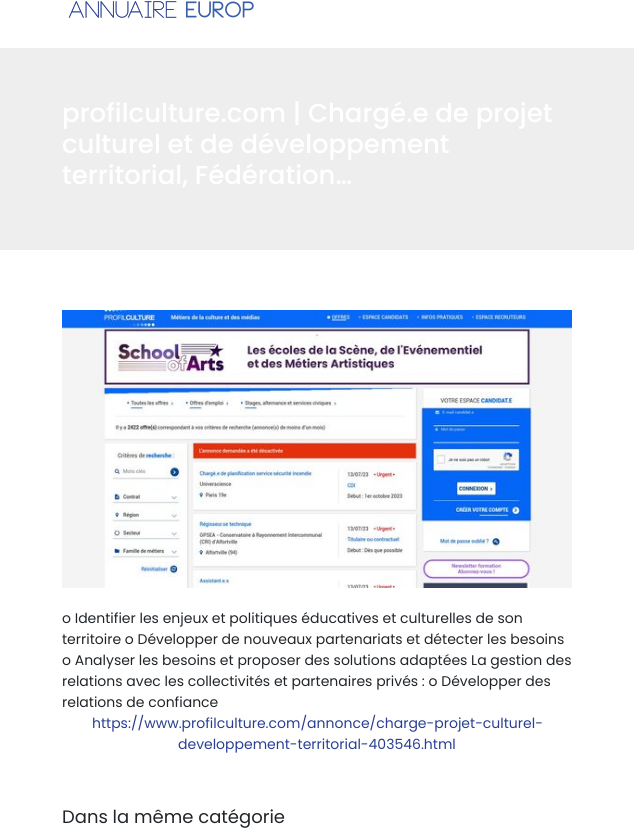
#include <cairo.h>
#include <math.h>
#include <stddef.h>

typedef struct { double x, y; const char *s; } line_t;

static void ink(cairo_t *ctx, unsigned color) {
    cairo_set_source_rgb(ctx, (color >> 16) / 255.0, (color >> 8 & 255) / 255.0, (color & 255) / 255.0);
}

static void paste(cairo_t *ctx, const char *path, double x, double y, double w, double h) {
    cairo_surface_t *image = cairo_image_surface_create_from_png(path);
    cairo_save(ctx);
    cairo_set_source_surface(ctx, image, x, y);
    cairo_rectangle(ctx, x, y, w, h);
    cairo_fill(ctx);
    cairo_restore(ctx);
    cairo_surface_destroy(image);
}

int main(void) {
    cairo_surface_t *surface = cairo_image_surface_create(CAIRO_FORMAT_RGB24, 634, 830);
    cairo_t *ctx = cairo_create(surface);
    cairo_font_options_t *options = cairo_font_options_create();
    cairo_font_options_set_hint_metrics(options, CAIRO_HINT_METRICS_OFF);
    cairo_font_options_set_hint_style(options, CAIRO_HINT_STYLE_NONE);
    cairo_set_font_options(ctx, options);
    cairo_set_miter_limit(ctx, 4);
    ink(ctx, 0xFFFFFF);
    cairo_paint(ctx);
    paste(ctx, "media/1.png", 68, 1, 186, 17);
    ink(ctx, 0xEEEEEE);
    cairo_rectangle(ctx, 0, 48, 634, 202);
    cairo_fill(ctx);
    cairo_select_font_face(ctx, "Poppins Medium", CAIRO_FONT_SLANT_NORMAL, CAIRO_FONT_WEIGHT_NORMAL);
    cairo_set_font_size(ctx, 26);
    ink(ctx, 0xFFFFFF);
    {
        static const line_t items[] = {
            {62, 122, "profilculture.com | Chargé.e de projet"},
            {62, 153, "culturel et de développement"},
            {62, 184, "territorial, Fédération…"},
        };
        for (size_t i = 0; i < sizeof items / sizeof *items; i++) {
            cairo_move_to(ctx, items[i].x, items[i].y);
            cairo_show_text(ctx, items[i].s);
        }
    }
    paste(ctx, "media/2.png", 62, 310, 510, 278);
    cairo_select_font_face(ctx, "Poppins", CAIRO_FONT_SLANT_NORMAL, CAIRO_FONT_WEIGHT_NORMAL);
    cairo_set_font_size(ctx, 14);
    ink(ctx, 0x212529);
    {
        static const line_t items[] = {
            {62, 623, "o Identifier les enjeux et politiques éducatives et culturelles de son"},
            {62, 644, "territoire o Développer de nouveaux partenariats et détecter les besoins"},
            {62, 665, "o Analyser les besoins et proposer des solutions adaptées La gestion des"},
            {62, 686, "relations avec les collectivités et partenaires privés : o Développer des"},
            {62, 707, "relations de confiance"},
        };
        for (size_t i = 0; i < sizeof items / sizeof *items; i++) {
            cairo_move_to(ctx, items[i].x, items[i].y);
            cairo_show_text(ctx, items[i].s);
        }
    }
    ink(ctx, 0x293F92);
    cairo_move_to(ctx, 92, 728);
    cairo_show_text(ctx, "https://www.profilculture.com/annonce/charge-projet-culturel-");
    cairo_move_to(ctx, 178, 749);
    cairo_show_text(ctx, "developpement-territorial-403546.html");
    cairo_set_font_size(ctx, 18);
    ink(ctx, 0x212529);
    cairo_move_to(ctx, 62, 823);
    cairo_show_text(ctx, "Dans la même catégorie");
    cairo_surface_write_to_png(surface, "image.png");
    cairo_font_options_destroy(options);
    cairo_destroy(ctx);
    cairo_surface_destroy(surface);
    return 0;
}
